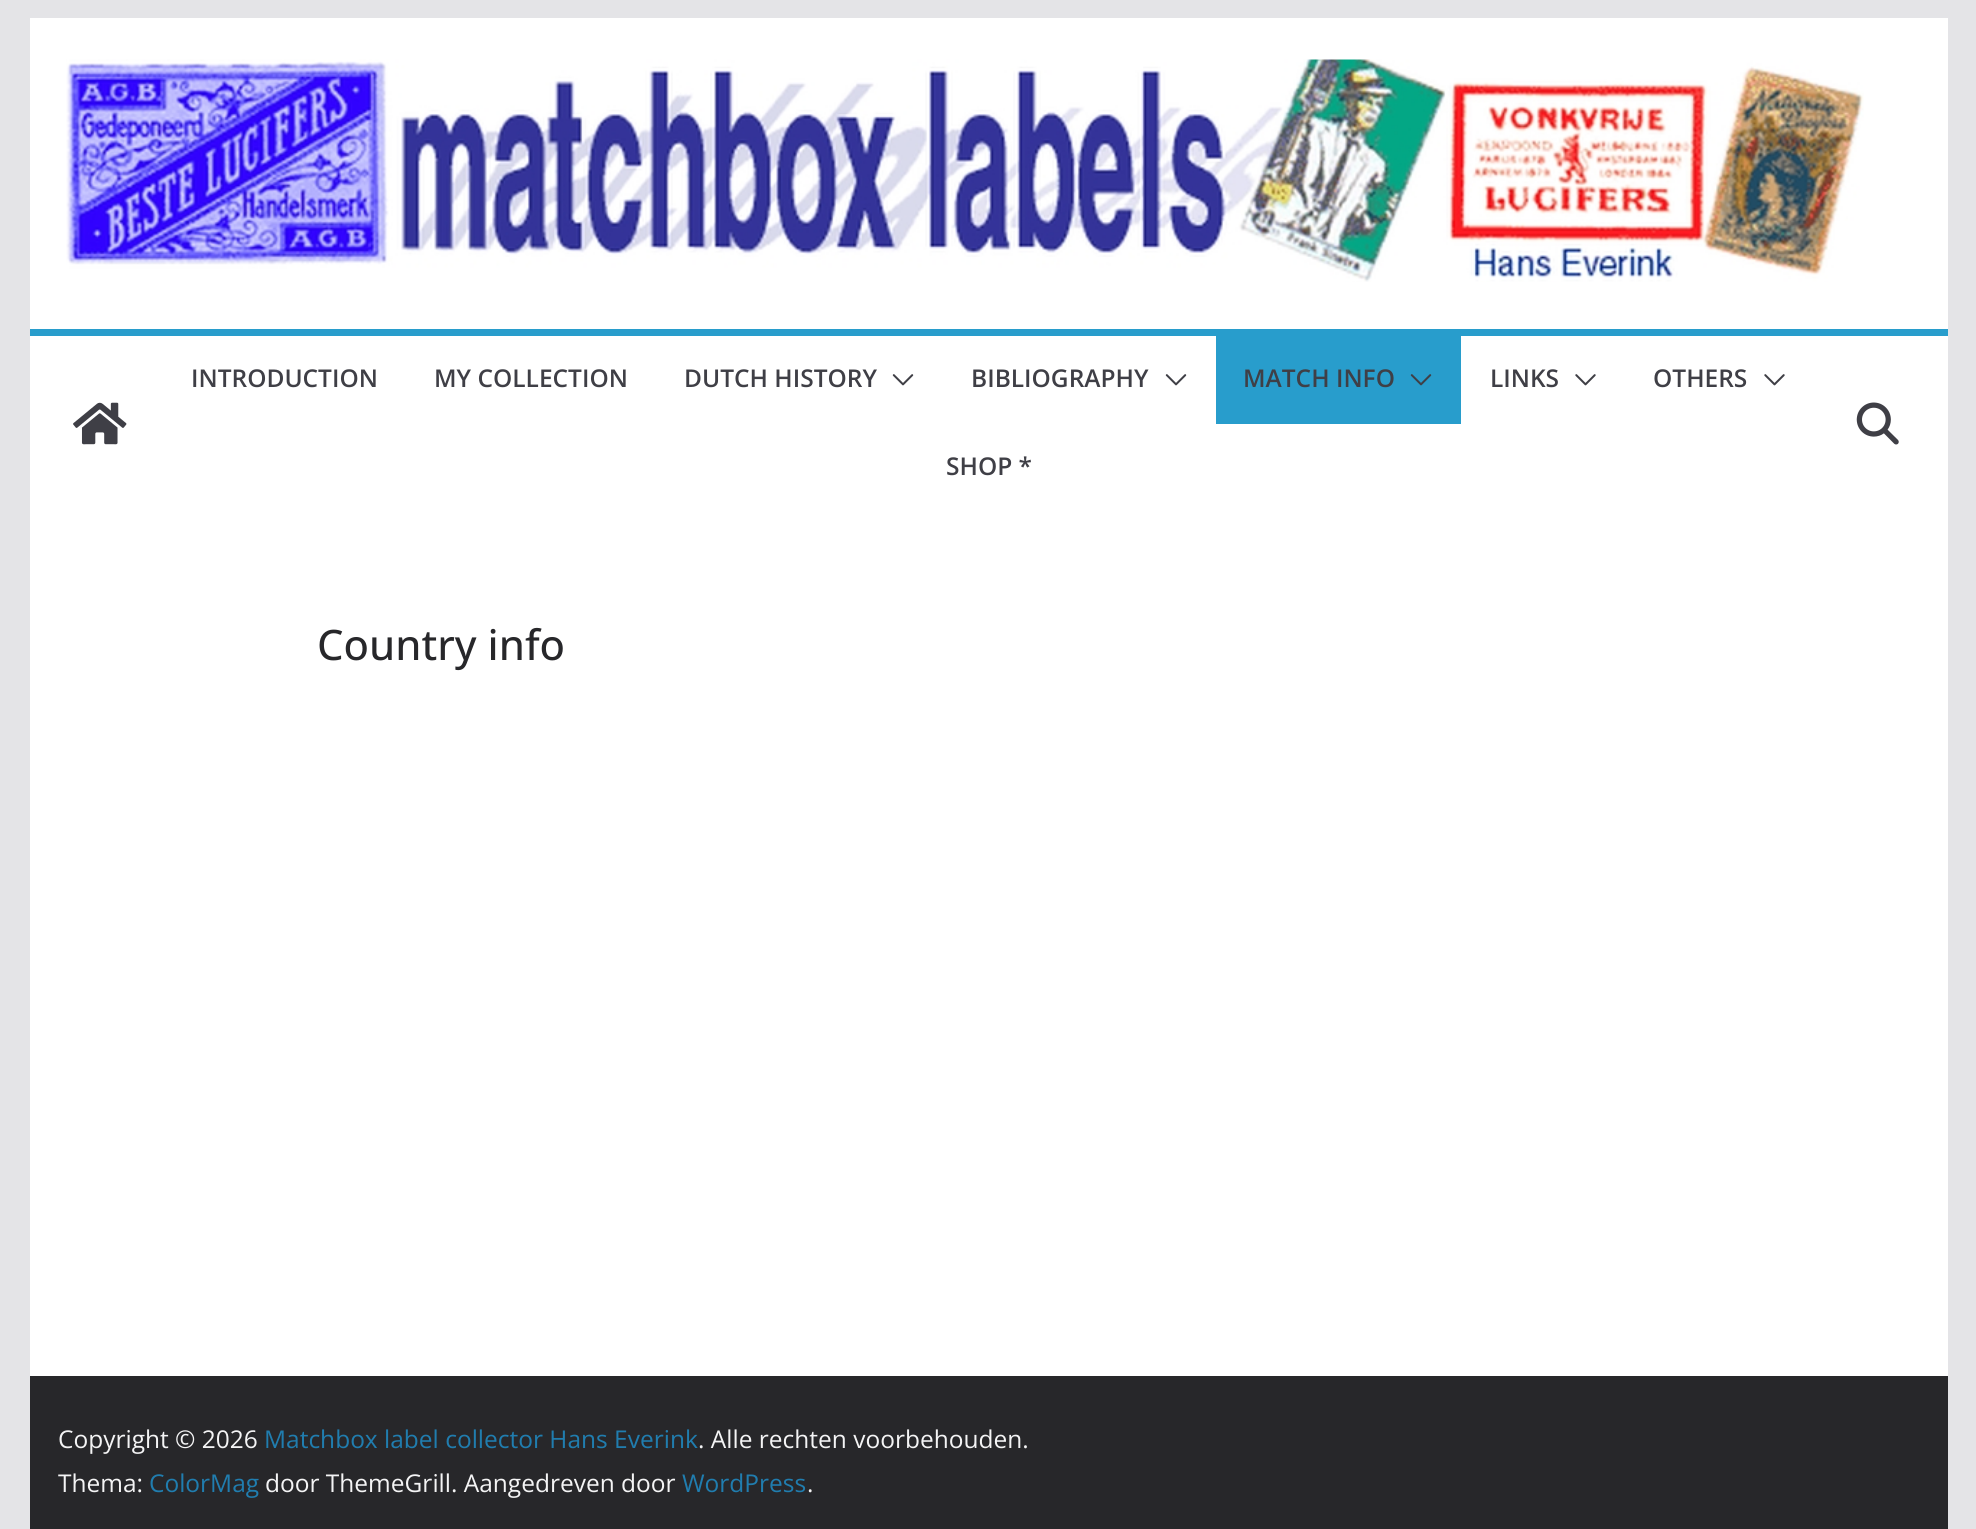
#include <cairo.h>
#include <math.h>
#include <stddef.h>

typedef struct { double x, y; const char *s; } line_t;

static void ink(cairo_t *ctx, unsigned color) {
    cairo_set_source_rgb(ctx, (color >> 16) / 255.0, (color >> 8 & 255) / 255.0, (color & 255) / 255.0);
}

static void paste(cairo_t *ctx, const char *path, double x, double y, double w, double h) {
    cairo_surface_t *image = cairo_image_surface_create_from_png(path);
    cairo_save(ctx);
    cairo_set_source_surface(ctx, image, x, y);
    cairo_rectangle(ctx, x, y, w, h);
    cairo_fill(ctx);
    cairo_restore(ctx);
    cairo_surface_destroy(image);
}

int main(void) {
    cairo_surface_t *surface = cairo_image_surface_create(CAIRO_FORMAT_RGB24, 1976, 1529);
    cairo_t *ctx = cairo_create(surface);
    cairo_font_options_t *options = cairo_font_options_create();
    cairo_font_options_set_hint_metrics(options, CAIRO_HINT_METRICS_OFF);
    cairo_font_options_set_hint_style(options, CAIRO_HINT_STYLE_NONE);
    cairo_set_font_options(ctx, options);
    cairo_set_miter_limit(ctx, 4);
    ink(ctx, 0xE4E4E7);
    cairo_paint(ctx);
    ink(ctx, 0xFFFFFF);
    cairo_rectangle(ctx, 30, 18, 1918, 1358);
    cairo_fill(ctx);
    paste(ctx, "media/1.png", 66, 59, 1798, 223);
    ink(ctx, 0x289DCC);
    cairo_rectangle(ctx, 30, 329, 1918, 7);
    cairo_fill(ctx);
    paste(ctx, "media/2.png", 73, 402, 54, 43);
    cairo_select_font_face(ctx, "Open Sans SemiBold", CAIRO_FONT_SLANT_NORMAL, CAIRO_FONT_WEIGHT_NORMAL);
    cairo_set_font_size(ctx, 24.5);
    ink(ctx, 0x3F3F46);
    {
        static const line_t items[] = {
            {191, 387, "INTRODUCTION"},
            {434, 387, "MY COLLECTION"},
            {684, 387, "DUTCH HISTORY"},
        };
        for (size_t i = 0; i < sizeof items / sizeof *items; i++) {
            cairo_move_to(ctx, items[i].x, items[i].y);
            cairo_show_text(ctx, items[i].s);
        }
    }
    paste(ctx, "media/3.png", 892, 374, 22, 12);
    cairo_move_to(ctx, 971, 387);
    cairo_show_text(ctx, "BIBLIOGRAPHY");
    paste(ctx, "media/3.png", 1165, 374, 22, 12);
    ink(ctx, 0x289DCC);
    cairo_rectangle(ctx, 1216, 336, 245, 88);
    cairo_fill(ctx);
    ink(ctx, 0x3F3F46);
    cairo_move_to(ctx, 1243, 387);
    cairo_show_text(ctx, "MATCH INFO");
    paste(ctx, "media/4.png", 1410, 374, 22, 12);
    cairo_move_to(ctx, 1490, 387);
    cairo_show_text(ctx, "LINKS");
    paste(ctx, "media/5.png", 1575, 374, 21, 12);
    cairo_move_to(ctx, 1653, 387);
    cairo_show_text(ctx, "OTHERS");
    paste(ctx, "media/5.png", 1764, 374, 21, 12);
    cairo_move_to(ctx, 946, 475);
    cairo_show_text(ctx, "SHOP *");
    paste(ctx, "media/6.png", 1856, 402, 43, 43);
    cairo_select_font_face(ctx, "Open Sans Medium", CAIRO_FONT_SLANT_NORMAL, CAIRO_FONT_WEIGHT_NORMAL);
    cairo_set_font_size(ctx, 42);
    ink(ctx, 0x27272A);
    cairo_move_to(ctx, 317, 660);
    cairo_show_text(ctx, "Country info");
    cairo_rectangle(ctx, 30, 1376, 1918, 153);
    cairo_fill(ctx);
    cairo_select_font_face(ctx, "Open Sans", CAIRO_FONT_SLANT_NORMAL, CAIRO_FONT_WEIGHT_NORMAL);
    cairo_set_font_size(ctx, 24.5);
    ink(ctx, 0xF4F4F5);
    cairo_move_to(ctx, 58, 1448);
    cairo_show_text(ctx, "Copyright © 2026");
    ink(ctx, 0x207DAF);
    cairo_move_to(ctx, 264, 1448);
    cairo_show_text(ctx, "Matchbox label collector Hans Everink");
    ink(ctx, 0xF4F4F5);
    cairo_move_to(ctx, 698, 1448);
    cairo_show_text(ctx, ". Alle rechten voorbehouden.");
    cairo_move_to(ctx, 58, 1492);
    cairo_show_text(ctx, "Thema:");
    ink(ctx, 0x207DAF);
    cairo_move_to(ctx, 149, 1492);
    cairo_show_text(ctx, "ColorMag");
    ink(ctx, 0xF4F4F5);
    cairo_move_to(ctx, 265, 1492);
    cairo_show_text(ctx, "door ThemeGrill. Aangedreven door");
    ink(ctx, 0x207DAF);
    cairo_move_to(ctx, 682, 1492);
    cairo_show_text(ctx, "WordPress");
    ink(ctx, 0xF4F4F5);
    cairo_move_to(ctx, 807, 1492);
    cairo_show_text(ctx, ".");
    cairo_surface_write_to_png(surface, "image.png");
    cairo_font_options_destroy(options);
    cairo_destroy(ctx);
    cairo_surface_destroy(surface);
    return 0;
}
